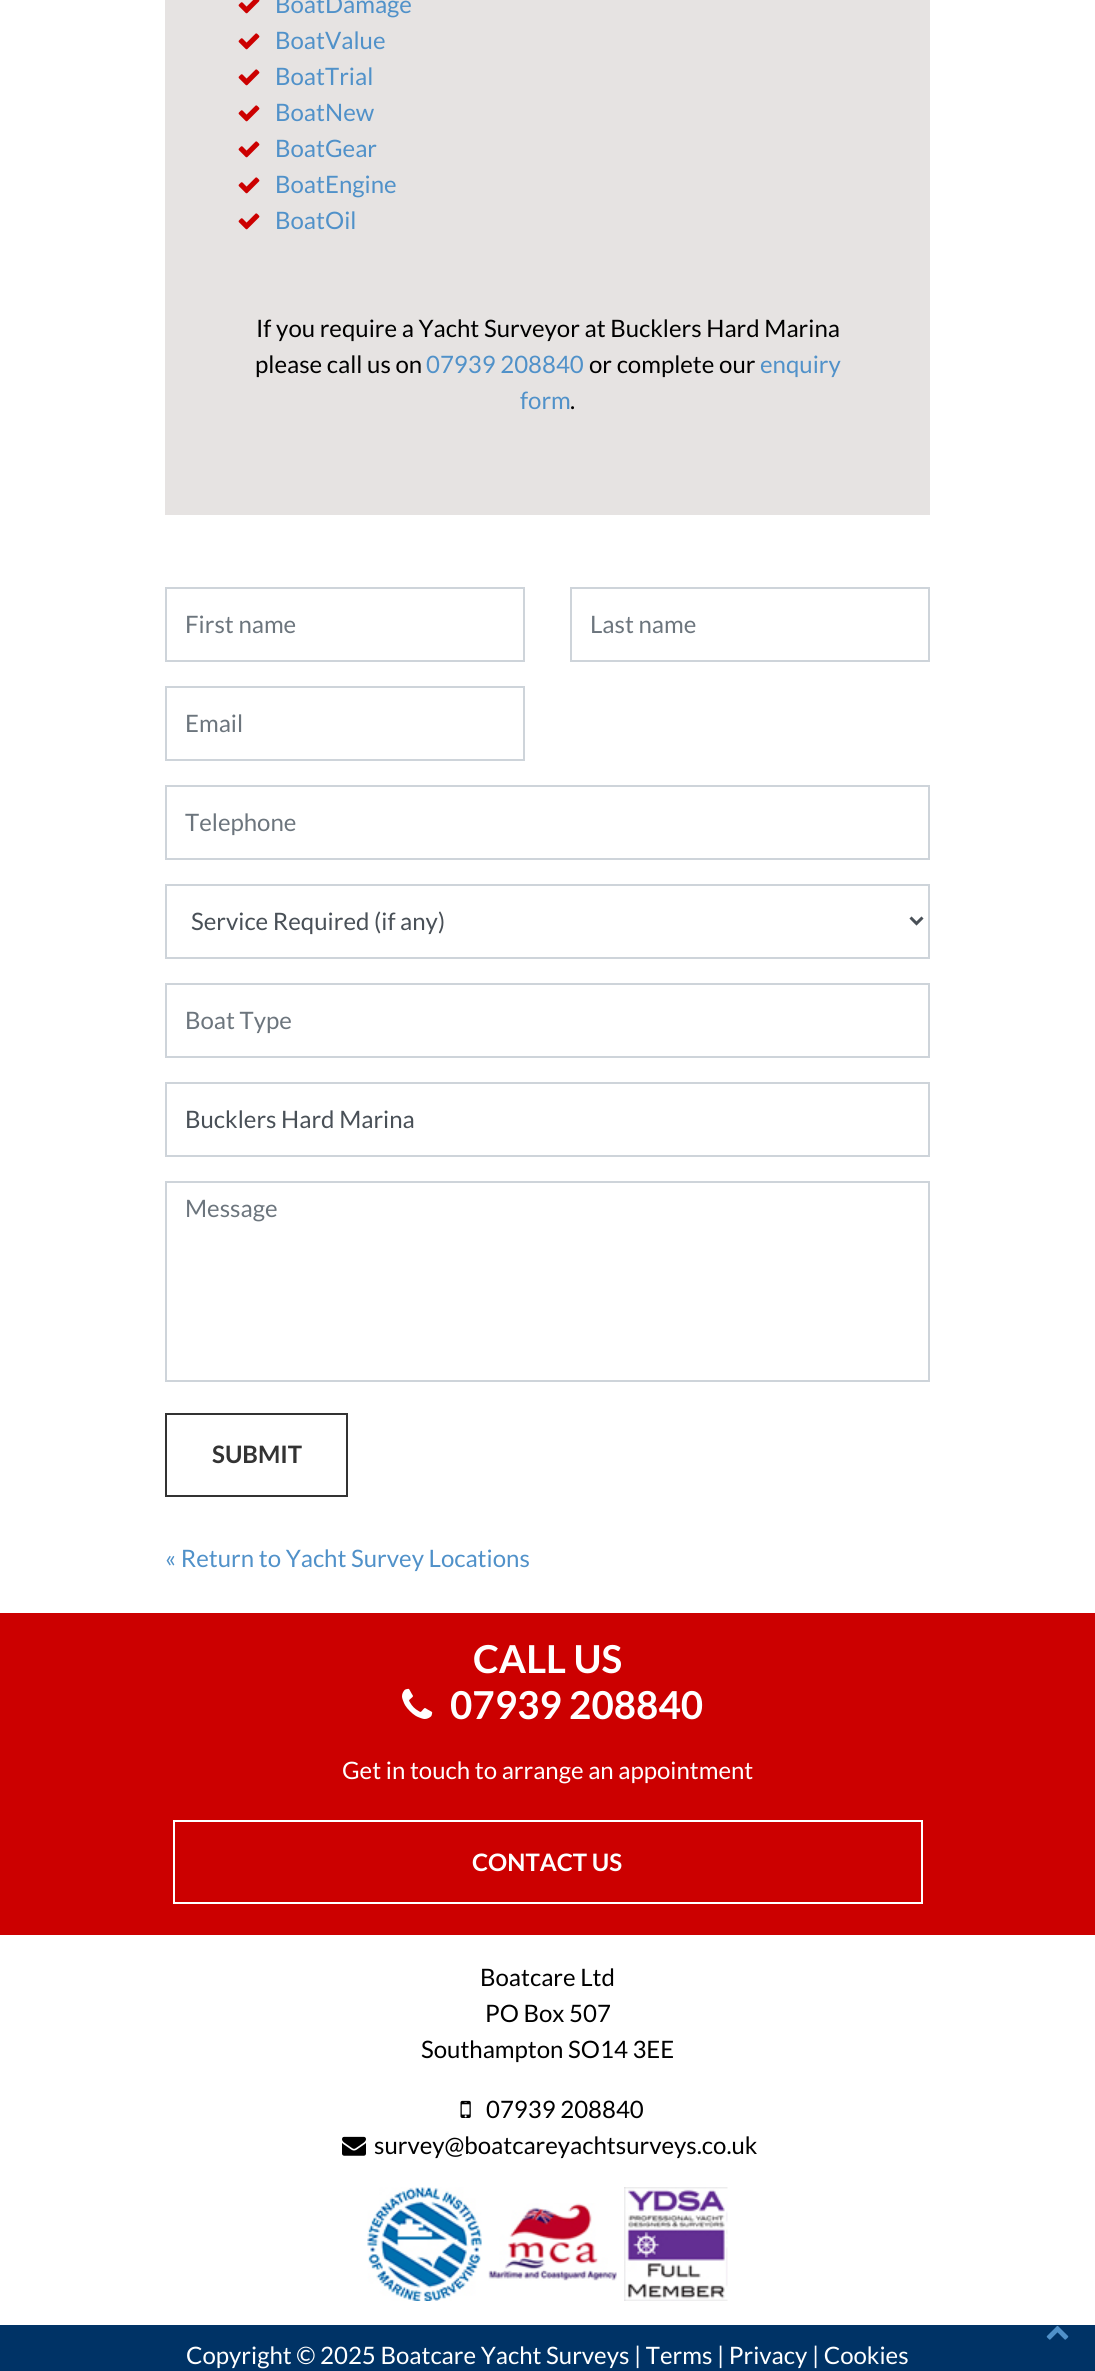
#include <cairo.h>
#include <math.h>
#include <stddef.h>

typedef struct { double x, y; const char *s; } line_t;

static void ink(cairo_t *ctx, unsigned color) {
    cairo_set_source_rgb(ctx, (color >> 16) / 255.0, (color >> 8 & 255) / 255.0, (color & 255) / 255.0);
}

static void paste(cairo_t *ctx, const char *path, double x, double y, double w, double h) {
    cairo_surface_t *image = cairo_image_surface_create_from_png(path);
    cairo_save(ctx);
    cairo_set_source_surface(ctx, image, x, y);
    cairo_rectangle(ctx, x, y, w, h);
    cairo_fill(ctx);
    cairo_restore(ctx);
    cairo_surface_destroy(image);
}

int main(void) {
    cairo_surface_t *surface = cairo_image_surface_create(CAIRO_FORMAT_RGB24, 1095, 2371);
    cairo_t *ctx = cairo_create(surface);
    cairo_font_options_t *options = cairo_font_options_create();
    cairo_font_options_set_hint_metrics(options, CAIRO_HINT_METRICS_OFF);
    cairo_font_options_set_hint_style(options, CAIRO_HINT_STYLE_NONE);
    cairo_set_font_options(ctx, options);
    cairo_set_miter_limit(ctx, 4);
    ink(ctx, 0xFFFFFF);
    cairo_paint(ctx);
    ink(ctx, 0xE6E3E2);
    cairo_rectangle(ctx, 165, 0, 765, 515);
    cairo_fill(ctx);
    paste(ctx, "media/1.png", 238, 0, 22, 14);
    cairo_select_font_face(ctx, "Lato", CAIRO_FONT_SLANT_NORMAL, CAIRO_FONT_WEIGHT_NORMAL);
    cairo_set_font_size(ctx, 24);
    ink(ctx, 0x5091C9);
    cairo_move_to(ctx, 275, 13);
    cairo_show_text(ctx, "BoatDamage");
    paste(ctx, "media/2.png", 238, 33, 22, 17);
    cairo_move_to(ctx, 275, 49);
    cairo_show_text(ctx, "BoatValue");
    paste(ctx, "media/2.png", 238, 69, 22, 17);
    cairo_move_to(ctx, 275, 85);
    cairo_show_text(ctx, "BoatTrial");
    paste(ctx, "media/2.png", 238, 105, 22, 17);
    cairo_move_to(ctx, 275, 121);
    cairo_show_text(ctx, "BoatNew");
    paste(ctx, "media/2.png", 238, 141, 22, 17);
    cairo_move_to(ctx, 275, 157);
    cairo_show_text(ctx, "BoatGear");
    paste(ctx, "media/2.png", 238, 177, 22, 17);
    cairo_move_to(ctx, 275, 193);
    cairo_show_text(ctx, "BoatEngine");
    paste(ctx, "media/2.png", 238, 213, 22, 17);
    cairo_move_to(ctx, 275, 229);
    cairo_show_text(ctx, "BoatOil");
    ink(ctx, 0x000000);
    cairo_move_to(ctx, 256, 337);
    cairo_show_text(ctx, "If you require a Yacht Surveyor at Bucklers Hard Marina");
    cairo_move_to(ctx, 255, 373);
    cairo_show_text(ctx, "please call us on");
    ink(ctx, 0x5091C9);
    cairo_move_to(ctx, 426, 373);
    cairo_show_text(ctx, "07939 208840");
    ink(ctx, 0x000000);
    cairo_move_to(ctx, 589, 373);
    cairo_show_text(ctx, "or complete our");
    ink(ctx, 0x5091C9);
    cairo_move_to(ctx, 760, 373);
    cairo_show_text(ctx, "enquiry");
    cairo_move_to(ctx, 520, 409);
    cairo_show_text(ctx, "form");
    ink(ctx, 0x000000);
    cairo_move_to(ctx, 570, 409);
    cairo_show_text(ctx, ".");
    cairo_rectangle(ctx, 166, 588, 358, 73);
    ink(ctx, 0xCED4DA);
    cairo_stroke(ctx);
    ink(ctx, 0x6C757D);
    cairo_move_to(ctx, 185, 633);
    cairo_show_text(ctx, "First name");
    cairo_rectangle(ctx, 571, 588, 358, 73);
    ink(ctx, 0xCED4DA);
    cairo_stroke(ctx);
    ink(ctx, 0x6C757D);
    cairo_move_to(ctx, 590, 633);
    cairo_show_text(ctx, "Last name");
    cairo_rectangle(ctx, 166, 687, 358, 73);
    ink(ctx, 0xCED4DA);
    cairo_stroke(ctx);
    ink(ctx, 0x6C757D);
    cairo_move_to(ctx, 185, 732);
    cairo_show_text(ctx, "Email");
    cairo_rectangle(ctx, 166, 786, 763, 73);
    ink(ctx, 0xCED4DA);
    cairo_stroke(ctx);
    ink(ctx, 0x6C757D);
    cairo_move_to(ctx, 185, 831);
    cairo_show_text(ctx, "Telephone");
    cairo_rectangle(ctx, 166, 885, 763, 73);
    ink(ctx, 0xCED4DA);
    cairo_stroke(ctx);
    cairo_new_path(ctx);
    cairo_move_to(ctx, 910.5, 917.5);
    cairo_line_to(ctx, 916.5, 923.5);
    cairo_line_to(ctx, 922.5, 917.5);
    ink(ctx, 0x495057);
    cairo_set_line_width(ctx, 3);
    cairo_stroke(ctx);
    cairo_move_to(ctx, 191, 930);
    cairo_show_text(ctx, "Service Required (if any)");
    cairo_rectangle(ctx, 166, 984, 763, 73);
    ink(ctx, 0xCED4DA);
    cairo_set_line_width(ctx, 2);
    cairo_stroke(ctx);
    ink(ctx, 0x6C757D);
    cairo_move_to(ctx, 185, 1029);
    cairo_show_text(ctx, "Boat Type");
    cairo_rectangle(ctx, 166, 1083, 763, 73);
    ink(ctx, 0xCED4DA);
    cairo_stroke(ctx);
    ink(ctx, 0x495057);
    cairo_move_to(ctx, 185, 1128);
    cairo_show_text(ctx, "Bucklers Hard Marina");
    cairo_rectangle(ctx, 166, 1182, 763, 199);
    ink(ctx, 0xCED4DA);
    cairo_stroke(ctx);
    ink(ctx, 0x6C757D);
    cairo_move_to(ctx, 185, 1217);
    cairo_show_text(ctx, "Message");
    cairo_rectangle(ctx, 166, 1414, 181, 82);
    ink(ctx, 0x333333);
    cairo_stroke(ctx);
    cairo_select_font_face(ctx, "Lato", CAIRO_FONT_SLANT_NORMAL, CAIRO_FONT_WEIGHT_BOLD);
    cairo_move_to(ctx, 212, 1463);
    cairo_show_text(ctx, "SUBMIT");
    cairo_select_font_face(ctx, "Lato", CAIRO_FONT_SLANT_NORMAL, CAIRO_FONT_WEIGHT_NORMAL);
    ink(ctx, 0x5091C9);
    cairo_move_to(ctx, 165, 1567);
    cairo_show_text(ctx, "« Return to Yacht Survey Locations");
    ink(ctx, 0xCC0000);
    cairo_rectangle(ctx, 0, 1613, 1095, 322);
    cairo_fill(ctx);
    cairo_select_font_face(ctx, "Lato", CAIRO_FONT_SLANT_NORMAL, CAIRO_FONT_WEIGHT_BOLD);
    cairo_set_font_size(ctx, 38.5);
    ink(ctx, 0xFFFFFF);
    cairo_move_to(ctx, 473, 1673);
    cairo_show_text(ctx, "CALL US");
    paste(ctx, "media/3.png", 402, 1688, 31, 31);
    cairo_move_to(ctx, 450, 1719);
    cairo_show_text(ctx, "07939 208840");
    cairo_select_font_face(ctx, "Lato", CAIRO_FONT_SLANT_NORMAL, CAIRO_FONT_WEIGHT_NORMAL);
    cairo_set_font_size(ctx, 24);
    cairo_move_to(ctx, 342, 1779);
    cairo_show_text(ctx, "Get in touch to arrange an appointment");
    cairo_rectangle(ctx, 174, 1821, 748, 82);
    cairo_stroke(ctx);
    cairo_select_font_face(ctx, "Lato", CAIRO_FONT_SLANT_NORMAL, CAIRO_FONT_WEIGHT_BOLD);
    cairo_move_to(ctx, 472, 1871);
    cairo_show_text(ctx, "CONTACT US");
    cairo_select_font_face(ctx, "Lato", CAIRO_FONT_SLANT_NORMAL, CAIRO_FONT_WEIGHT_NORMAL);
    ink(ctx, 0x000000);
    {
        static const line_t items[] = {
            {480, 1986, "Boatcare Ltd"},
            {485, 2022, "PO Box 507"},
            {421, 2058, "Southampton SO14 3EE"},
        };
        for (size_t i = 0; i < sizeof items / sizeof *items; i++) {
            cairo_move_to(ctx, items[i].x, items[i].y);
            cairo_show_text(ctx, items[i].s);
        }
    }
    paste(ctx, "media/4.png", 460, 2100, 11, 18);
    cairo_move_to(ctx, 486, 2118);
    cairo_show_text(ctx, "07939 208840");
    paste(ctx, "media/5.png", 342, 2136, 24, 20);
    cairo_move_to(ctx, 374, 2154);
    cairo_show_text(ctx, "survey@boatcareyachtsurveys.co.uk");
    paste(ctx, "media/6.png", 367, 2187, 115, 114);
    paste(ctx, "media/7.png", 488, 2203, 129, 78);
    paste(ctx, "media/8.png", 624, 2187, 104, 114);
    ink(ctx, 0x003366);
    cairo_rectangle(ctx, 0, 2325, 1095, 46);
    cairo_fill(ctx);
    ink(ctx, 0xFFFFFF);
    cairo_move_to(ctx, 186, 2364);
    cairo_show_text(ctx, "Copyright © 2025 Boatcare Yacht Surveys | Terms | Privacy | Cookies");
    paste(ctx, "media/9.png", 1046, 2325, 23, 15);
    cairo_surface_write_to_png(surface, "image.png");
    cairo_font_options_destroy(options);
    cairo_destroy(ctx);
    cairo_surface_destroy(surface);
    return 0;
}
